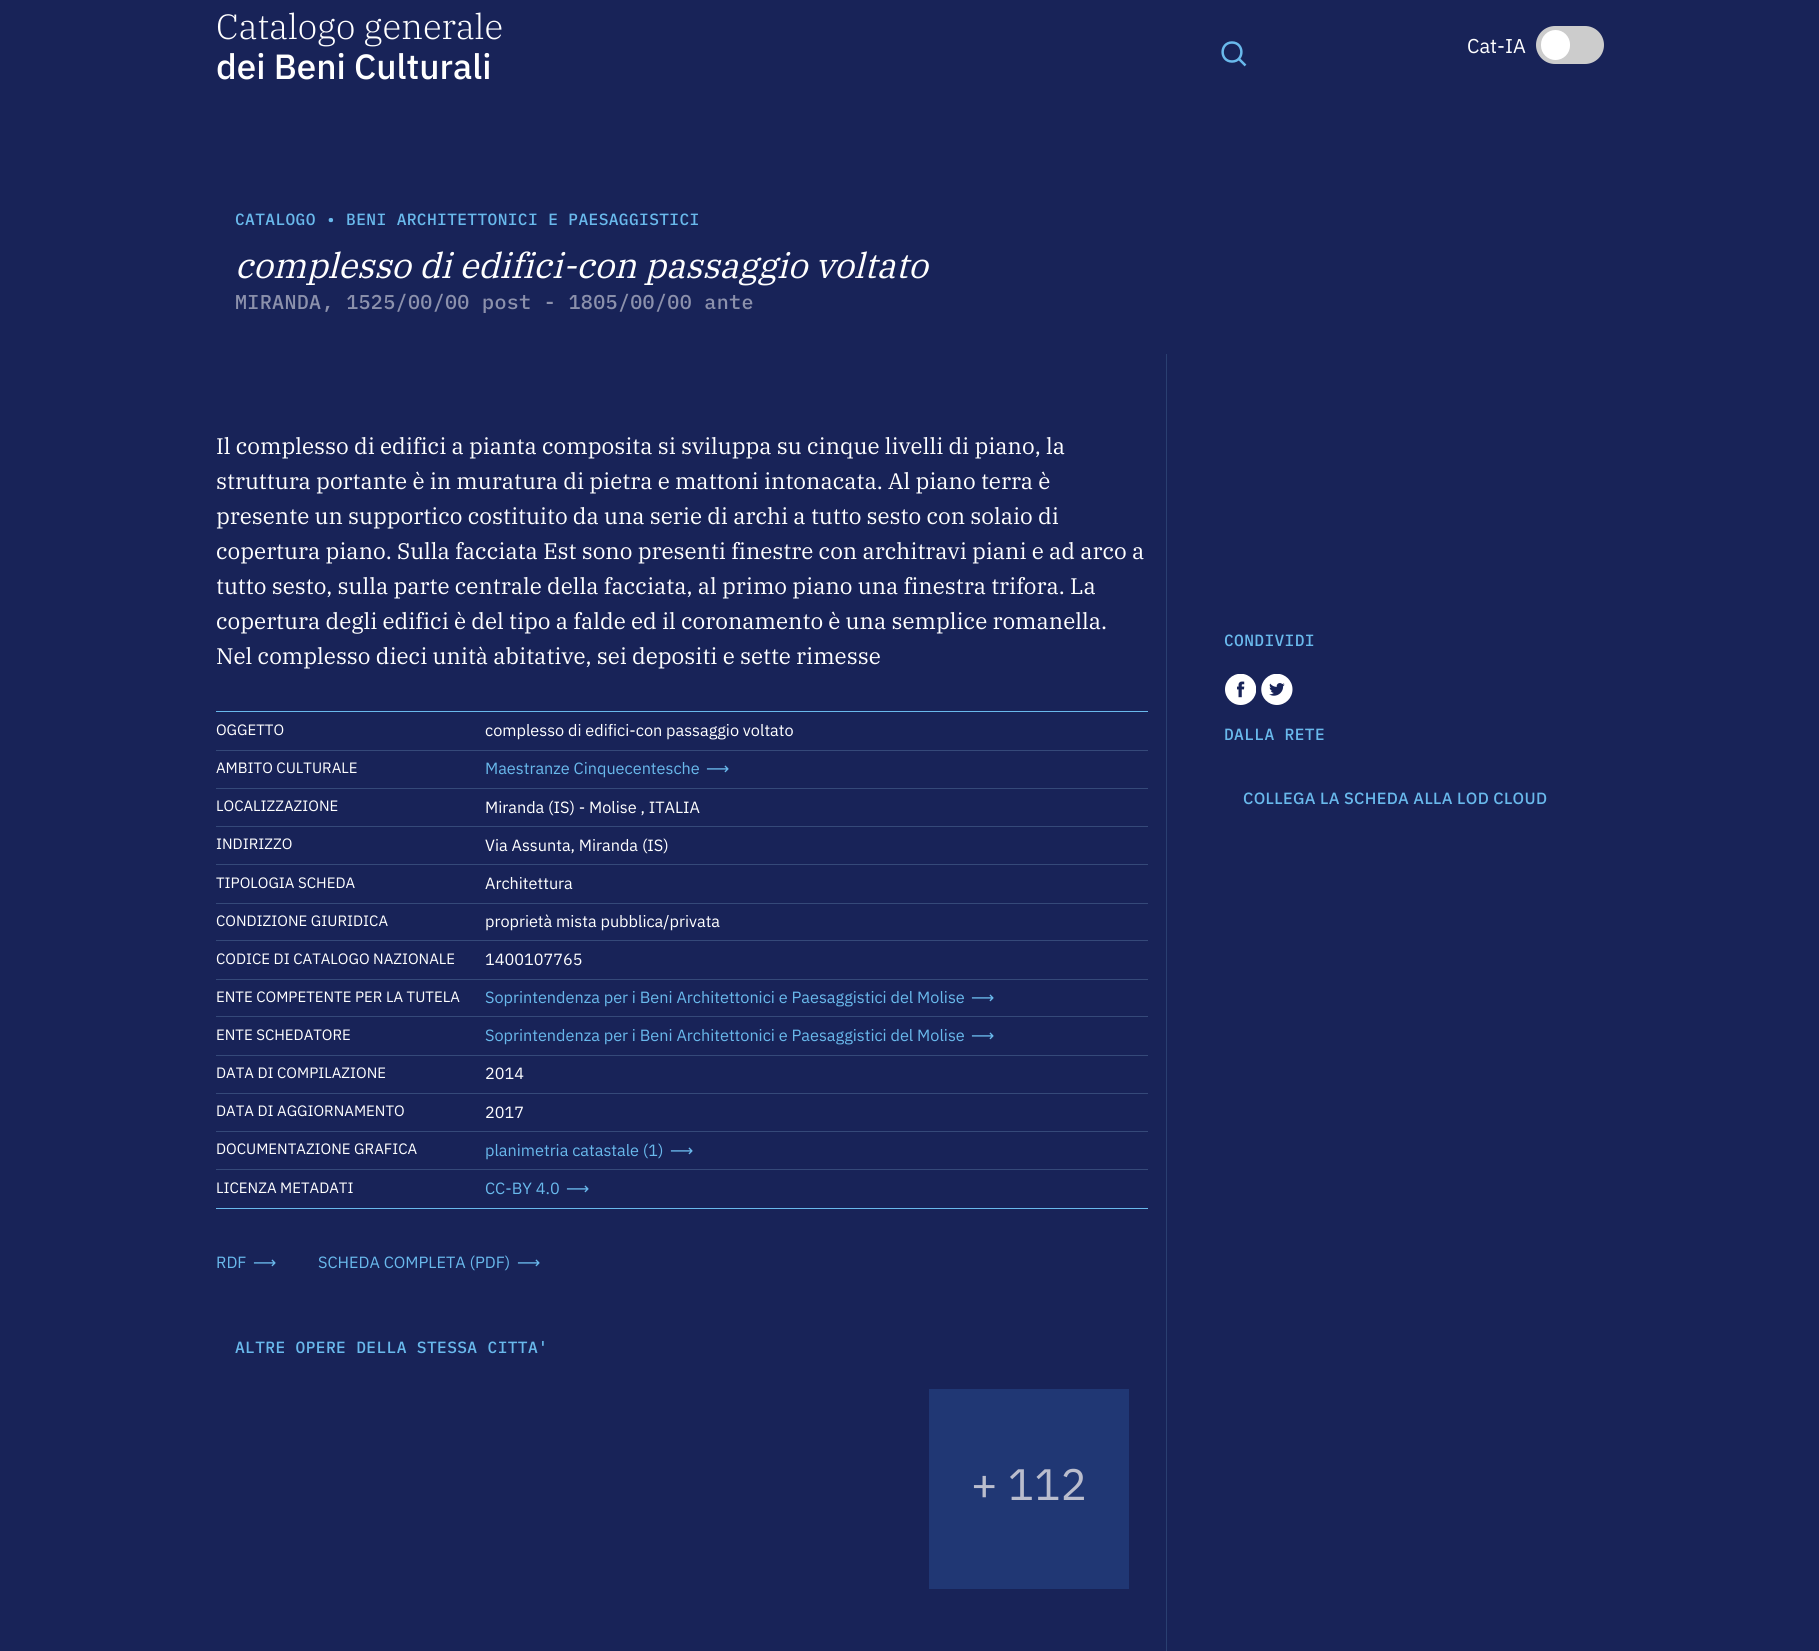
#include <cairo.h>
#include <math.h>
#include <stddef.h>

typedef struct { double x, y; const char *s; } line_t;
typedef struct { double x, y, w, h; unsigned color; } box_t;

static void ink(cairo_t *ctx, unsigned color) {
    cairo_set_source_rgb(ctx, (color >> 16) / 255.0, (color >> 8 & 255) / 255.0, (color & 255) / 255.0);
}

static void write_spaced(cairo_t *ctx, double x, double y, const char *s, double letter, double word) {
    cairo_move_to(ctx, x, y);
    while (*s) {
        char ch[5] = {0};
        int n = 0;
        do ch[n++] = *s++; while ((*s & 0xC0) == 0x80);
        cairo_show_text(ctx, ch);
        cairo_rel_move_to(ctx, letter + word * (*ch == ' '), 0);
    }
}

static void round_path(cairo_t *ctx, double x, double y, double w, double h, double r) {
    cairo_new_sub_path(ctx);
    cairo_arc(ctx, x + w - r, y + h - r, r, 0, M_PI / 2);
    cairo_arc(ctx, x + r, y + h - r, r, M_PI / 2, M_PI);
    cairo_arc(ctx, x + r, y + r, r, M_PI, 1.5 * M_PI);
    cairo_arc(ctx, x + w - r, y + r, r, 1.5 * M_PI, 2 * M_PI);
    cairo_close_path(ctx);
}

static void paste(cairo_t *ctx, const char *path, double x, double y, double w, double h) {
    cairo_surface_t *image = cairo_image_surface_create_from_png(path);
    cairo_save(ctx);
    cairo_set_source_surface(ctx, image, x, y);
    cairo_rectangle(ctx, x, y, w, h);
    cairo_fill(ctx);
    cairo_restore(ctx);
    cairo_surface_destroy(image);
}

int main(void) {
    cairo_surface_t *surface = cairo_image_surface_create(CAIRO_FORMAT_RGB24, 1819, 1651);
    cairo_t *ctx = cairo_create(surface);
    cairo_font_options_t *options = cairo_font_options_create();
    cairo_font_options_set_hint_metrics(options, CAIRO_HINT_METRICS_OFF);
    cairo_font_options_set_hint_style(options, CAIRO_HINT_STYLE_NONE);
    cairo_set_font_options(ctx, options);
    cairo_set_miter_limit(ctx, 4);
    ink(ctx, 0x182358);
    cairo_paint(ctx);
    cairo_select_font_face(ctx, "IBM Plex Serif Light", CAIRO_FONT_SLANT_NORMAL, CAIRO_FONT_WEIGHT_NORMAL);
    cairo_set_font_size(ctx, 35);
    ink(ctx, 0xFFFFFF);
    cairo_move_to(ctx, 216, 39);
    cairo_show_text(ctx, "Catalogo generale");
    cairo_select_font_face(ctx, "IBM Plex Sans Medium", CAIRO_FONT_SLANT_NORMAL, CAIRO_FONT_WEIGHT_NORMAL);
    cairo_move_to(ctx, 216, 79);
    cairo_show_text(ctx, "dei Beni Culturali");
    cairo_new_path(ctx);
    cairo_move_to(ctx, 1232, 61.5);
    cairo_curve_to(ctx, 1244.5, 61.5, 1244.5, 42.5, 1232, 42.5);
    cairo_curve_to(ctx, 1219.5, 42.5, 1219.5, 61.5, 1232, 61.5);
    cairo_close_path(ctx);
    cairo_move_to(ctx, 1239.5, 59.5);
    cairo_line_to(ctx, 1245.5, 65.5);
    ink(ctx, 0x69B9EC);
    cairo_set_line_width(ctx, 2.5);
    cairo_stroke(ctx);
    cairo_select_font_face(ctx, "IBM Plex Sans", CAIRO_FONT_SLANT_NORMAL, CAIRO_FONT_WEIGHT_NORMAL);
    cairo_set_font_size(ctx, 20);
    ink(ctx, 0xFFFFFF);
    cairo_move_to(ctx, 1467, 53);
    cairo_show_text(ctx, "Cat-IA");
    ink(ctx, 0xCCCCCC);
    round_path(ctx, 1536, 26, 68, 38, 19);
    cairo_fill(ctx);
    ink(ctx, 0xFFFFFF);
    round_path(ctx, 1541, 30, 29, 30, 14.5);
    cairo_fill(ctx);
    cairo_select_font_face(ctx, "IBM Plex Mono Medium", CAIRO_FONT_SLANT_NORMAL, CAIRO_FONT_WEIGHT_NORMAL);
    cairo_set_font_size(ctx, 16.25);
    ink(ctx, 0x69B9EC);
    write_spaced(ctx, 235, 225, "CATALOGO • BENI ARCHITETTONICI E PAESAGGISTICI", 0.35, 0);
    cairo_select_font_face(ctx, "IBM Plex Serif", CAIRO_FONT_SLANT_ITALIC, CAIRO_FONT_WEIGHT_NORMAL);
    cairo_set_font_size(ctx, 35);
    ink(ctx, 0xFFFFFF);
    cairo_move_to(ctx, 235, 278);
    cairo_show_text(ctx, "complesso di edifici-con passaggio voltato");
    cairo_select_font_face(ctx, "IBM Plex Mono Medium", CAIRO_FONT_SLANT_NORMAL, CAIRO_FONT_WEIGHT_NORMAL);
    cairo_set_font_size(ctx, 20);
    ink(ctx, 0x8C91AC);
    write_spaced(ctx, 235, 309, "MIRANDA, 1525/00/00 post - 1805/00/00 ante", 0.35, 0);
    ink(ctx, 0x2A3F71);
    cairo_rectangle(ctx, 1166, 354, 1, 1297);
    cairo_fill(ctx);
    cairo_select_font_face(ctx, "IBM Plex Serif", CAIRO_FONT_SLANT_NORMAL, CAIRO_FONT_WEIGHT_NORMAL);
    cairo_set_font_size(ctx, 22.5);
    ink(ctx, 0xFFFFFF);
    {
        static const line_t items[] = {
            {216, 454, "Il complesso di edifici a pianta composita si sviluppa su cinque livelli di piano, la"},
            {216, 489, "struttura portante è in muratura di pietra e mattoni intonacata. Al piano terra è"},
            {216, 524, "presente un supportico costituito da una serie di archi a tutto sesto con solaio di"},
            {216, 559, "copertura piano. Sulla facciata Est sono presenti finestre con architravi piani e ad arco a"},
            {216, 594, "tutto sesto, sulla parte centrale della facciata, al primo piano una finestra trifora. La"},
            {216, 629, "copertura degli edifici è del tipo a falde ed il coronamento è una semplice romanella."},
            {216, 664, "Nel complesso dieci unità abitative, sei depositi e sette rimesse"},
        };
        for (size_t i = 0; i < sizeof items / sizeof *items; i++) {
            cairo_move_to(ctx, items[i].x, items[i].y);
            cairo_show_text(ctx, items[i].s);
        }
    }
    {
        static const box_t items[] = {
            {216, 711, 932, 1, 0x69B9EC},
            {216, 1208, 932, 1, 0x69B9EC},
            {216, 750, 932, 1, 0x354979},
        };
        for (size_t i = 0; i < sizeof items / sizeof *items; i++) {
            ink(ctx, items[i].color);
            cairo_rectangle(ctx, items[i].x, items[i].y, items[i].w, items[i].h);
            cairo_fill(ctx);
        }
    }
    cairo_select_font_face(ctx, "IBM Plex Sans", CAIRO_FONT_SLANT_NORMAL, CAIRO_FONT_WEIGHT_NORMAL);
    cairo_set_font_size(ctx, 15);
    ink(ctx, 0xFFFFFF);
    cairo_move_to(ctx, 216, 735);
    cairo_show_text(ctx, "OGGETTO");
    cairo_set_font_size(ctx, 16.25);
    cairo_move_to(ctx, 485, 736);
    cairo_show_text(ctx, "complesso di edifici-con passaggio voltato");
    ink(ctx, 0x354979);
    cairo_rectangle(ctx, 216, 788, 932, 1);
    cairo_fill(ctx);
    cairo_set_font_size(ctx, 15);
    ink(ctx, 0xFFFFFF);
    cairo_move_to(ctx, 216, 773);
    cairo_show_text(ctx, "AMBITO CULTURALE");
    cairo_set_font_size(ctx, 16.25);
    ink(ctx, 0x69B9EC);
    cairo_move_to(ctx, 485, 774);
    cairo_show_text(ctx, "Maestranze Cinquecentesche");
    cairo_select_font_face(ctx, "DejaVu Sans", CAIRO_FONT_SLANT_NORMAL, CAIRO_FONT_WEIGHT_NORMAL);
    cairo_move_to(ctx, 706, 774);
    cairo_show_text(ctx, "⟶");
    ink(ctx, 0x354979);
    cairo_rectangle(ctx, 216, 826, 932, 1);
    cairo_fill(ctx);
    cairo_select_font_face(ctx, "IBM Plex Sans", CAIRO_FONT_SLANT_NORMAL, CAIRO_FONT_WEIGHT_NORMAL);
    cairo_set_font_size(ctx, 15);
    ink(ctx, 0xFFFFFF);
    cairo_move_to(ctx, 216, 811);
    cairo_show_text(ctx, "LOCALIZZAZIONE");
    cairo_set_font_size(ctx, 16.25);
    cairo_move_to(ctx, 485, 813);
    cairo_show_text(ctx, "Miranda (IS) - Molise , ITALIA");
    ink(ctx, 0x354979);
    cairo_rectangle(ctx, 216, 864, 932, 1);
    cairo_fill(ctx);
    cairo_set_font_size(ctx, 15);
    ink(ctx, 0xFFFFFF);
    cairo_move_to(ctx, 216, 849);
    cairo_show_text(ctx, "INDIRIZZO");
    cairo_set_font_size(ctx, 16.25);
    cairo_move_to(ctx, 485, 851);
    cairo_show_text(ctx, "Via Assunta, Miranda (IS)");
    ink(ctx, 0x354979);
    cairo_rectangle(ctx, 216, 903, 932, 1);
    cairo_fill(ctx);
    cairo_set_font_size(ctx, 15);
    ink(ctx, 0xFFFFFF);
    cairo_move_to(ctx, 216, 888);
    cairo_show_text(ctx, "TIPOLOGIA SCHEDA");
    cairo_set_font_size(ctx, 16.25);
    cairo_move_to(ctx, 485, 889);
    cairo_show_text(ctx, "Architettura");
    ink(ctx, 0x354979);
    cairo_rectangle(ctx, 216, 940, 932, 1);
    cairo_fill(ctx);
    cairo_set_font_size(ctx, 15);
    ink(ctx, 0xFFFFFF);
    cairo_move_to(ctx, 216, 926);
    cairo_show_text(ctx, "CONDIZIONE GIURIDICA");
    cairo_set_font_size(ctx, 16.25);
    cairo_move_to(ctx, 485, 927);
    cairo_show_text(ctx, "proprietà mista pubblica/privata");
    ink(ctx, 0x354979);
    cairo_rectangle(ctx, 216, 979, 932, 1);
    cairo_fill(ctx);
    cairo_set_font_size(ctx, 15);
    ink(ctx, 0xFFFFFF);
    cairo_move_to(ctx, 216, 964);
    cairo_show_text(ctx, "CODICE DI CATALOGO NAZIONALE");
    cairo_set_font_size(ctx, 16.25);
    cairo_move_to(ctx, 485, 965);
    cairo_show_text(ctx, "1400107765");
    ink(ctx, 0x354979);
    cairo_rectangle(ctx, 216, 1016, 932, 1);
    cairo_fill(ctx);
    cairo_set_font_size(ctx, 15);
    ink(ctx, 0xFFFFFF);
    cairo_move_to(ctx, 216, 1002);
    cairo_show_text(ctx, "ENTE COMPETENTE PER LA TUTELA");
    cairo_set_font_size(ctx, 16.25);
    ink(ctx, 0x69B9EC);
    cairo_move_to(ctx, 485, 1003);
    cairo_show_text(ctx, "Soprintendenza per i Beni Architettonici e Paesaggistici del Molise");
    cairo_select_font_face(ctx, "DejaVu Sans", CAIRO_FONT_SLANT_NORMAL, CAIRO_FONT_WEIGHT_NORMAL);
    cairo_move_to(ctx, 971, 1003);
    cairo_show_text(ctx, "⟶");
    ink(ctx, 0x354979);
    cairo_rectangle(ctx, 216, 1055, 932, 1);
    cairo_fill(ctx);
    cairo_select_font_face(ctx, "IBM Plex Sans", CAIRO_FONT_SLANT_NORMAL, CAIRO_FONT_WEIGHT_NORMAL);
    cairo_set_font_size(ctx, 15);
    ink(ctx, 0xFFFFFF);
    cairo_move_to(ctx, 216, 1040);
    cairo_show_text(ctx, "ENTE SCHEDATORE");
    cairo_set_font_size(ctx, 16.25);
    ink(ctx, 0x69B9EC);
    cairo_move_to(ctx, 485, 1041);
    cairo_show_text(ctx, "Soprintendenza per i Beni Architettonici e Paesaggistici del Molise");
    cairo_select_font_face(ctx, "DejaVu Sans", CAIRO_FONT_SLANT_NORMAL, CAIRO_FONT_WEIGHT_NORMAL);
    cairo_move_to(ctx, 971, 1041);
    cairo_show_text(ctx, "⟶");
    ink(ctx, 0x354979);
    cairo_rectangle(ctx, 216, 1093, 932, 1);
    cairo_fill(ctx);
    cairo_select_font_face(ctx, "IBM Plex Sans", CAIRO_FONT_SLANT_NORMAL, CAIRO_FONT_WEIGHT_NORMAL);
    cairo_set_font_size(ctx, 15);
    ink(ctx, 0xFFFFFF);
    cairo_move_to(ctx, 216, 1078);
    cairo_show_text(ctx, "DATA DI COMPILAZIONE");
    cairo_set_font_size(ctx, 16.25);
    cairo_move_to(ctx, 485, 1079);
    cairo_show_text(ctx, "2014");
    ink(ctx, 0x354979);
    cairo_rectangle(ctx, 216, 1131, 932, 1);
    cairo_fill(ctx);
    cairo_set_font_size(ctx, 15);
    ink(ctx, 0xFFFFFF);
    cairo_move_to(ctx, 216, 1116);
    cairo_show_text(ctx, "DATA DI AGGIORNAMENTO");
    cairo_set_font_size(ctx, 16.25);
    cairo_move_to(ctx, 485, 1118);
    cairo_show_text(ctx, "2017");
    ink(ctx, 0x354979);
    cairo_rectangle(ctx, 216, 1169, 932, 1);
    cairo_fill(ctx);
    cairo_set_font_size(ctx, 15);
    ink(ctx, 0xFFFFFF);
    cairo_move_to(ctx, 216, 1154);
    cairo_show_text(ctx, "DOCUMENTAZIONE GRAFICA");
    cairo_set_font_size(ctx, 16.25);
    ink(ctx, 0x69B9EC);
    cairo_move_to(ctx, 485, 1156);
    cairo_show_text(ctx, "planimetria catastale (1)");
    cairo_select_font_face(ctx, "DejaVu Sans", CAIRO_FONT_SLANT_NORMAL, CAIRO_FONT_WEIGHT_NORMAL);
    cairo_move_to(ctx, 670, 1156);
    cairo_show_text(ctx, "⟶");
    cairo_select_font_face(ctx, "IBM Plex Sans", CAIRO_FONT_SLANT_NORMAL, CAIRO_FONT_WEIGHT_NORMAL);
    cairo_set_font_size(ctx, 15);
    ink(ctx, 0xFFFFFF);
    cairo_move_to(ctx, 216, 1193);
    cairo_show_text(ctx, "LICENZA METADATI");
    cairo_set_font_size(ctx, 16.25);
    ink(ctx, 0x69B9EC);
    cairo_move_to(ctx, 485, 1194);
    cairo_show_text(ctx, "CC-BY 4.0");
    cairo_select_font_face(ctx, "DejaVu Sans", CAIRO_FONT_SLANT_NORMAL, CAIRO_FONT_WEIGHT_NORMAL);
    cairo_move_to(ctx, 566, 1194);
    cairo_show_text(ctx, "⟶");
    cairo_select_font_face(ctx, "IBM Plex Sans", CAIRO_FONT_SLANT_NORMAL, CAIRO_FONT_WEIGHT_NORMAL);
    cairo_move_to(ctx, 216, 1268);
    cairo_show_text(ctx, "RDF");
    cairo_select_font_face(ctx, "DejaVu Sans", CAIRO_FONT_SLANT_NORMAL, CAIRO_FONT_WEIGHT_NORMAL);
    cairo_move_to(ctx, 253, 1268);
    cairo_show_text(ctx, "⟶");
    cairo_select_font_face(ctx, "IBM Plex Sans", CAIRO_FONT_SLANT_NORMAL, CAIRO_FONT_WEIGHT_NORMAL);
    cairo_move_to(ctx, 318, 1268);
    cairo_show_text(ctx, "SCHEDA COMPLETA (PDF)");
    cairo_select_font_face(ctx, "DejaVu Sans", CAIRO_FONT_SLANT_NORMAL, CAIRO_FONT_WEIGHT_NORMAL);
    cairo_move_to(ctx, 517, 1268);
    cairo_show_text(ctx, "⟶");
    cairo_select_font_face(ctx, "IBM Plex Mono Medium", CAIRO_FONT_SLANT_NORMAL, CAIRO_FONT_WEIGHT_NORMAL);
    write_spaced(ctx, 235, 1353, "ALTRE OPERE DELLA STESSA CITTA'", 0.35, 0);
    ink(ctx, 0x203774);
    cairo_rectangle(ctx, 929, 1389, 200, 200);
    cairo_fill(ctx);
    cairo_select_font_face(ctx, "IBM Plex Sans", CAIRO_FONT_SLANT_NORMAL, CAIRO_FONT_WEIGHT_NORMAL);
    cairo_set_font_size(ctx, 44);
    ink(ctx, 0xBABDCD);
    cairo_move_to(ctx, 971, 1500);
    cairo_show_text(ctx, "+ 112");
    cairo_select_font_face(ctx, "IBM Plex Mono Medium", CAIRO_FONT_SLANT_NORMAL, CAIRO_FONT_WEIGHT_NORMAL);
    cairo_set_font_size(ctx, 16.25);
    ink(ctx, 0x69B9EC);
    write_spaced(ctx, 1224, 646, "CONDIVIDI", 0.35, 0);
    paste(ctx, "media/1.png", 1225, 674, 31, 31);
    paste(ctx, "media/2.png", 1261, 674, 32, 31);
    write_spaced(ctx, 1224, 740, "DALLA RETE", 0.35, 0);
    cairo_select_font_face(ctx, "IBM Plex Sans Medium", CAIRO_FONT_SLANT_NORMAL, CAIRO_FONT_WEIGHT_NORMAL);
    write_spaced(ctx, 1243, 804, "COLLEGA LA SCHEDA ALLA LOD CLOUD", 0.35, 0);
    cairo_surface_write_to_png(surface, "image.png");
    cairo_font_options_destroy(options);
    cairo_destroy(ctx);
    cairo_surface_destroy(surface);
    return 0;
}
